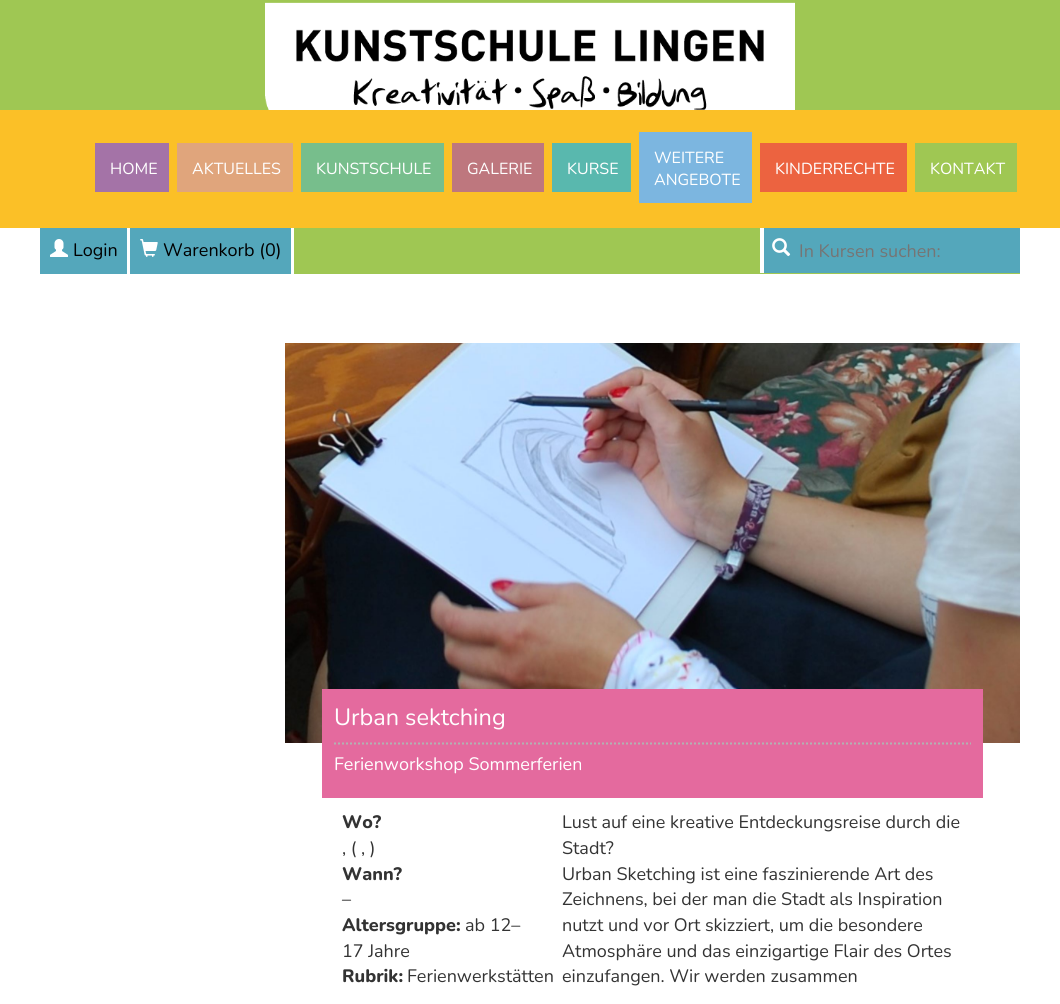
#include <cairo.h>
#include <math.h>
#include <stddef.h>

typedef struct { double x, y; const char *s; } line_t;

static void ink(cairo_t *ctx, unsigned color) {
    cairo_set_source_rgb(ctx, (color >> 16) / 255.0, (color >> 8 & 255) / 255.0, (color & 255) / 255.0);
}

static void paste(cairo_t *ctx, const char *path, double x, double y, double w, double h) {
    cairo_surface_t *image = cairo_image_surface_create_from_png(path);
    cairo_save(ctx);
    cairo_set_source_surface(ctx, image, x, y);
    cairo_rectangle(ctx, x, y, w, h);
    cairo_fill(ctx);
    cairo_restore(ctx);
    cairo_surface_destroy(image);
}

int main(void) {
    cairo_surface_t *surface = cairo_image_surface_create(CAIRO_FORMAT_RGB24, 1060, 1004);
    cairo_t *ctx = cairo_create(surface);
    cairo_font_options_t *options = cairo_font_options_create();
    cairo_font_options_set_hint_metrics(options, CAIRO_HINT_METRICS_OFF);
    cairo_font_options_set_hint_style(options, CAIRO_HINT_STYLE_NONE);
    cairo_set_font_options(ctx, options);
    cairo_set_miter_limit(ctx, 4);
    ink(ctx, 0xFFFFFF);
    cairo_paint(ctx);
    ink(ctx, 0x9FC753);
    cairo_rectangle(ctx, 0, 0, 1060, 110);
    cairo_fill(ctx);
    paste(ctx, "media/1.png", 265, 2, 530, 108);
    ink(ctx, 0xFBC027);
    cairo_rectangle(ctx, 0, 110, 1060, 118);
    cairo_fill(ctx);
    ink(ctx, 0xA473A7);
    cairo_rectangle(ctx, 95, 143, 74, 49);
    cairo_fill(ctx);
    cairo_select_font_face(ctx, "Nunito", CAIRO_FONT_SLANT_NORMAL, CAIRO_FONT_WEIGHT_NORMAL);
    cairo_set_font_size(ctx, 16);
    ink(ctx, 0xFFFFFF);
    cairo_move_to(ctx, 110, 174);
    cairo_show_text(ctx, "HOME");
    ink(ctx, 0xE0A57C);
    cairo_rectangle(ctx, 177, 143, 116, 49);
    cairo_fill(ctx);
    ink(ctx, 0xFFFFFF);
    cairo_move_to(ctx, 192, 174);
    cairo_show_text(ctx, "AKTUELLES");
    ink(ctx, 0x77BE8C);
    cairo_rectangle(ctx, 301, 143, 143, 49);
    cairo_fill(ctx);
    ink(ctx, 0xFFFFFF);
    cairo_move_to(ctx, 316, 174);
    cairo_show_text(ctx, "KUNSTSCHULE");
    ink(ctx, 0xBE777E);
    cairo_rectangle(ctx, 452, 143, 92, 49);
    cairo_fill(ctx);
    ink(ctx, 0xFFFFFF);
    cairo_move_to(ctx, 467, 174);
    cairo_show_text(ctx, "GALERIE");
    ink(ctx, 0x59B8AE);
    cairo_rectangle(ctx, 552, 143, 79, 49);
    cairo_fill(ctx);
    ink(ctx, 0xFFFFFF);
    cairo_move_to(ctx, 567, 174);
    cairo_show_text(ctx, "KURSE");
    ink(ctx, 0x7CB6E0);
    cairo_rectangle(ctx, 639, 132, 113, 71);
    cairo_fill(ctx);
    ink(ctx, 0xFFFFFF);
    cairo_move_to(ctx, 654, 163);
    cairo_show_text(ctx, "WEITERE");
    cairo_move_to(ctx, 654, 185);
    cairo_show_text(ctx, "ANGEBOTE");
    ink(ctx, 0xEC6340);
    cairo_rectangle(ctx, 760, 143, 147, 49);
    cairo_fill(ctx);
    ink(ctx, 0xFFFFFF);
    cairo_move_to(ctx, 775, 174);
    cairo_show_text(ctx, "KINDERRECHTE");
    ink(ctx, 0x9FC753);
    cairo_rectangle(ctx, 915, 143, 102, 49);
    cairo_fill(ctx);
    ink(ctx, 0xFFFFFF);
    cairo_move_to(ctx, 930, 174);
    cairo_show_text(ctx, "KONTAKT");
    ink(ctx, 0x9FC753);
    cairo_rectangle(ctx, 294, 228, 726, 46);
    cairo_fill(ctx);
    ink(ctx, 0x54A7BB);
    cairo_rectangle(ctx, 40, 228, 87, 46);
    cairo_fill(ctx);
    paste(ctx, "media/2.png", 50, 239, 18, 18);
    cairo_set_font_size(ctx, 18);
    ink(ctx, 0x000000);
    cairo_move_to(ctx, 73, 256);
    cairo_show_text(ctx, "Login");
    ink(ctx, 0x54A7BB);
    cairo_rectangle(ctx, 130, 228, 161, 46);
    cairo_fill(ctx);
    paste(ctx, "media/3.png", 140, 239, 18, 18);
    ink(ctx, 0x000000);
    cairo_move_to(ctx, 163, 256);
    cairo_show_text(ctx, "Warenkorb (0)");
    ink(ctx, 0x54A7BB);
    cairo_rectangle(ctx, 764, 228, 256, 45);
    cairo_fill(ctx);
    paste(ctx, "media/4.png", 772, 238, 19, 19);
    ink(ctx, 0xFFFFFF);
    cairo_rectangle(ctx, 760, 228, 4, 45);
    cairo_fill(ctx);
    ink(ctx, 0x757575);
    cairo_move_to(ctx, 799, 257);
    cairo_show_text(ctx, "In Kursen suchen:");
    paste(ctx, "media/5.png", 285, 343, 735, 400);
    ink(ctx, 0xE46A9E);
    cairo_rectangle(ctx, 322, 689, 661, 109);
    cairo_fill(ctx);
    cairo_set_font_size(ctx, 23.5);
    ink(ctx, 0xFFFFFF);
    cairo_move_to(ctx, 334, 725);
    cairo_show_text(ctx, "Urban sektching");
    cairo_new_path(ctx);
    cairo_move_to(ctx, 334, 743.5);
    cairo_line_to(ctx, 971, 743.5);
    ink(ctx, 0xB2B2B2);
    cairo_set_dash(ctx, (double[]){2, 2}, 2, 0);
    cairo_stroke(ctx);
    cairo_set_font_size(ctx, 18);
    ink(ctx, 0xFFFFFF);
    cairo_move_to(ctx, 334, 770);
    cairo_show_text(ctx, "Ferienworkshop Sommerferien");
    cairo_select_font_face(ctx, "Nunito ExtraBold", CAIRO_FONT_SLANT_NORMAL, CAIRO_FONT_WEIGHT_NORMAL);
    ink(ctx, 0x333333);
    cairo_move_to(ctx, 342, 828);
    cairo_show_text(ctx, "Wo?");
    cairo_select_font_face(ctx, "Nunito", CAIRO_FONT_SLANT_NORMAL, CAIRO_FONT_WEIGHT_NORMAL);
    cairo_move_to(ctx, 342, 854);
    cairo_show_text(ctx, ", ( , )");
    cairo_select_font_face(ctx, "Nunito ExtraBold", CAIRO_FONT_SLANT_NORMAL, CAIRO_FONT_WEIGHT_NORMAL);
    cairo_move_to(ctx, 342, 880);
    cairo_show_text(ctx, "Wann?");
    cairo_select_font_face(ctx, "Nunito", CAIRO_FONT_SLANT_NORMAL, CAIRO_FONT_WEIGHT_NORMAL);
    cairo_move_to(ctx, 342, 905);
    cairo_show_text(ctx, "–");
    cairo_select_font_face(ctx, "Nunito ExtraBold", CAIRO_FONT_SLANT_NORMAL, CAIRO_FONT_WEIGHT_NORMAL);
    cairo_move_to(ctx, 342, 931);
    cairo_show_text(ctx, "Altersgruppe:");
    cairo_select_font_face(ctx, "Nunito", CAIRO_FONT_SLANT_NORMAL, CAIRO_FONT_WEIGHT_NORMAL);
    cairo_move_to(ctx, 465, 931);
    cairo_show_text(ctx, "ab 12–");
    cairo_move_to(ctx, 342, 957);
    cairo_show_text(ctx, "17 Jahre");
    cairo_select_font_face(ctx, "Nunito ExtraBold", CAIRO_FONT_SLANT_NORMAL, CAIRO_FONT_WEIGHT_NORMAL);
    cairo_move_to(ctx, 342, 982);
    cairo_show_text(ctx, "Rubrik:");
    cairo_select_font_face(ctx, "Nunito", CAIRO_FONT_SLANT_NORMAL, CAIRO_FONT_WEIGHT_NORMAL);
    {
        static const line_t items[] = {
            {407, 982, "Ferienwerkstätten"},
            {562, 828, "Lust auf eine kreative Entdeckungsreise durch die"},
            {562, 854, "Stadt?"},
            {562, 880, "Urban Sketching ist eine faszinierende Art des"},
            {562, 905, "Zeichnens, bei der man die Stadt als Inspiration"},
            {562, 931, "nutzt und vor Ort skizziert, um die besondere"},
            {562, 957, "Atmosphäre und das einzigartige Flair des Ortes"},
            {562, 982, "einzufangen. Wir werden zusammen"},
        };
        for (size_t i = 0; i < sizeof items / sizeof *items; i++) {
            cairo_move_to(ctx, items[i].x, items[i].y);
            cairo_show_text(ctx, items[i].s);
        }
    }
    cairo_surface_write_to_png(surface, "image.png");
    cairo_font_options_destroy(options);
    cairo_destroy(ctx);
    cairo_surface_destroy(surface);
    return 0;
}
